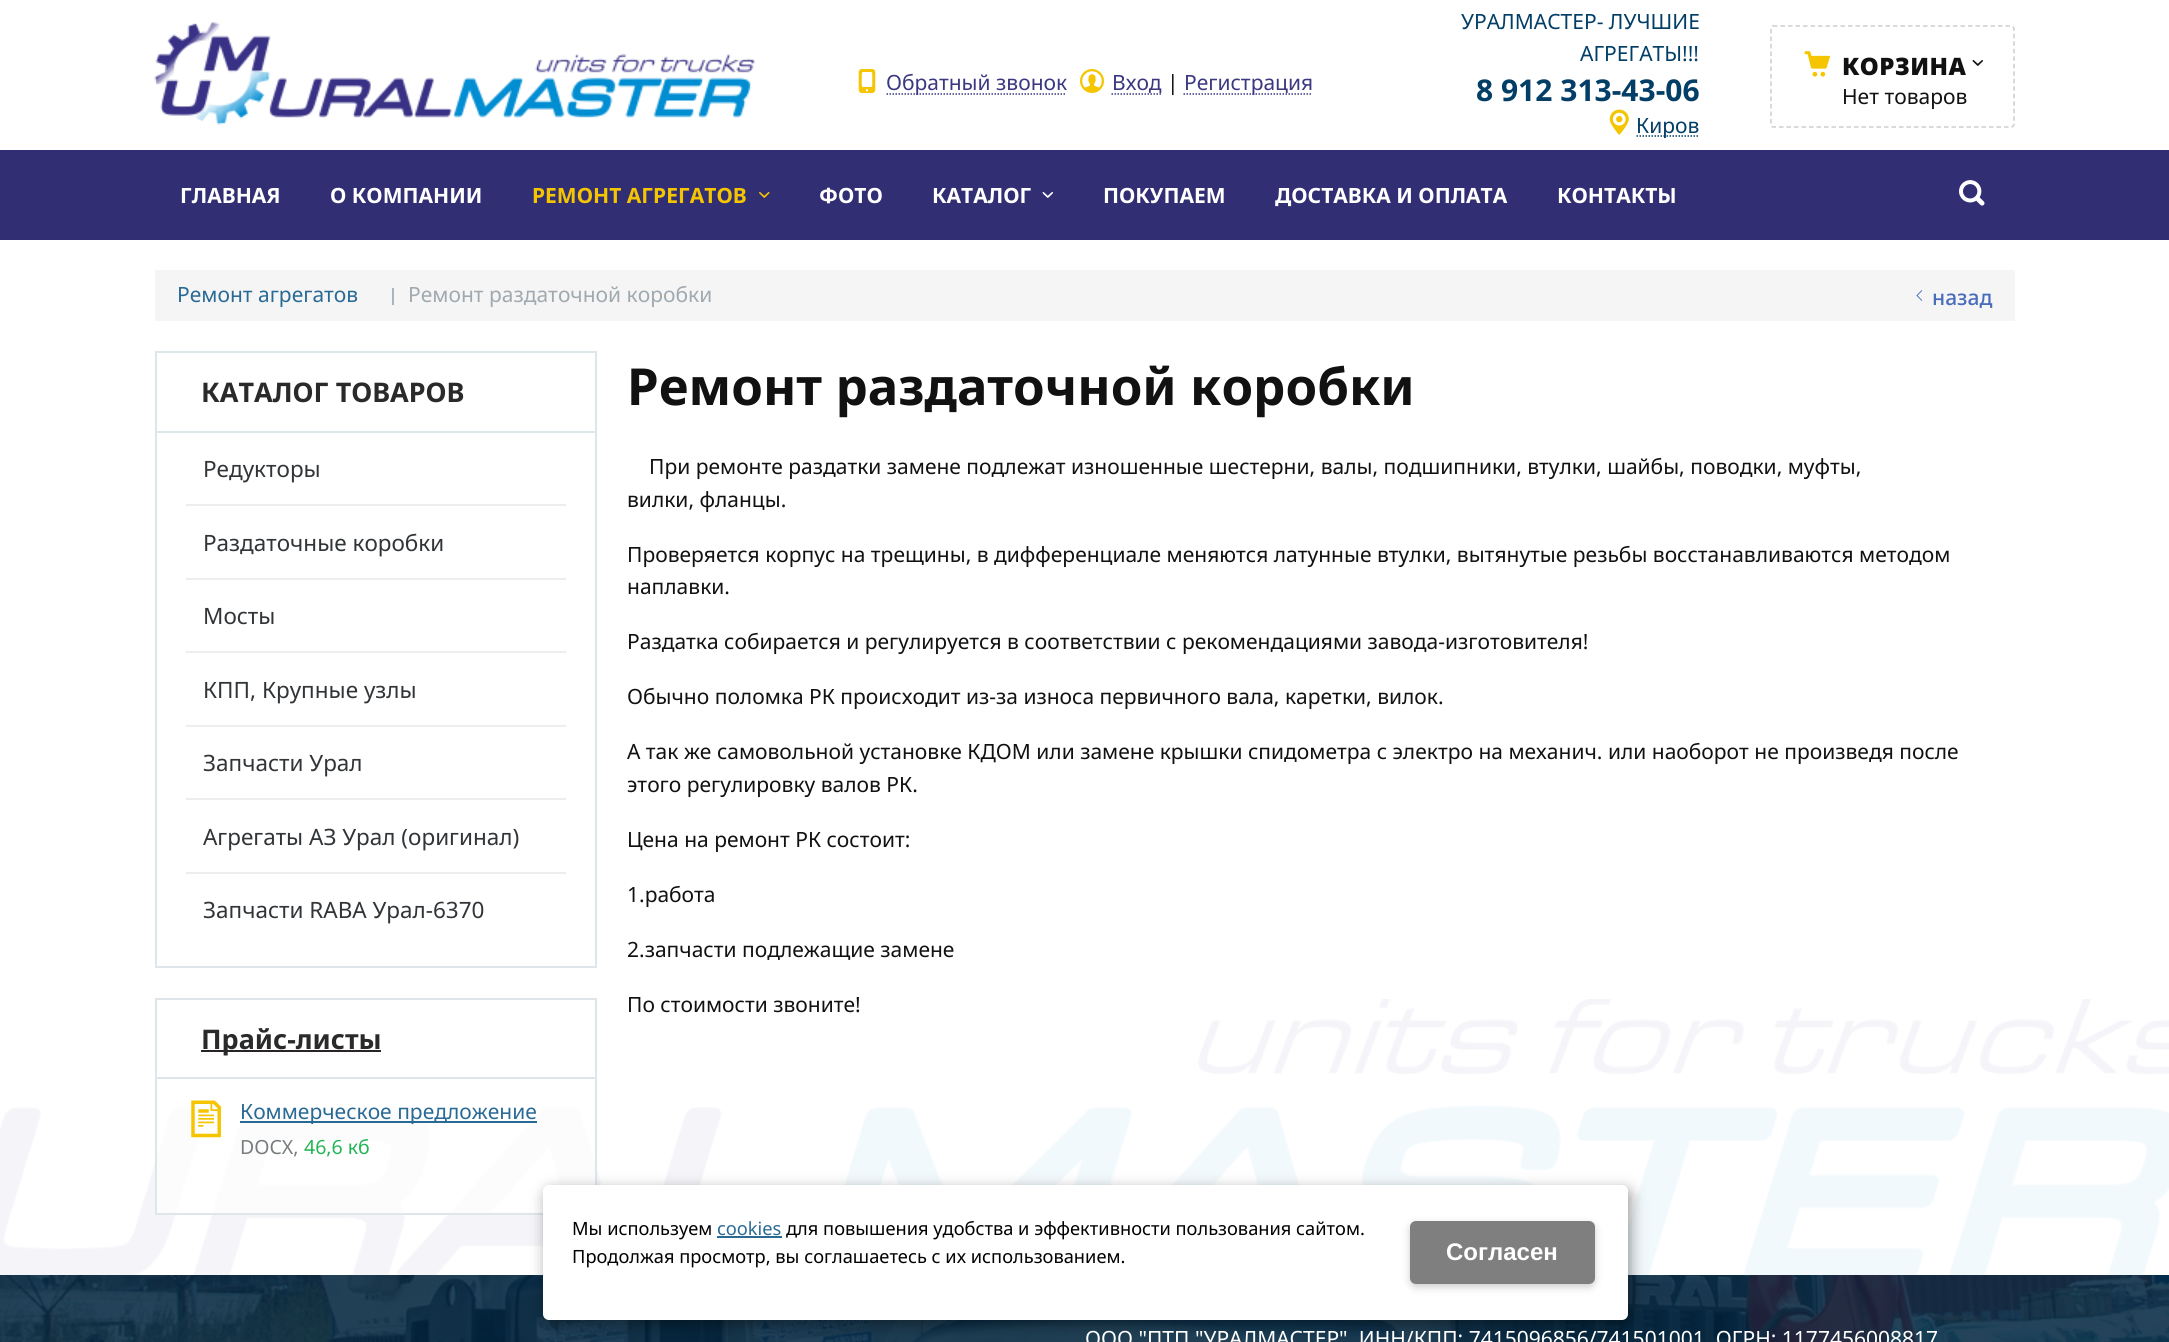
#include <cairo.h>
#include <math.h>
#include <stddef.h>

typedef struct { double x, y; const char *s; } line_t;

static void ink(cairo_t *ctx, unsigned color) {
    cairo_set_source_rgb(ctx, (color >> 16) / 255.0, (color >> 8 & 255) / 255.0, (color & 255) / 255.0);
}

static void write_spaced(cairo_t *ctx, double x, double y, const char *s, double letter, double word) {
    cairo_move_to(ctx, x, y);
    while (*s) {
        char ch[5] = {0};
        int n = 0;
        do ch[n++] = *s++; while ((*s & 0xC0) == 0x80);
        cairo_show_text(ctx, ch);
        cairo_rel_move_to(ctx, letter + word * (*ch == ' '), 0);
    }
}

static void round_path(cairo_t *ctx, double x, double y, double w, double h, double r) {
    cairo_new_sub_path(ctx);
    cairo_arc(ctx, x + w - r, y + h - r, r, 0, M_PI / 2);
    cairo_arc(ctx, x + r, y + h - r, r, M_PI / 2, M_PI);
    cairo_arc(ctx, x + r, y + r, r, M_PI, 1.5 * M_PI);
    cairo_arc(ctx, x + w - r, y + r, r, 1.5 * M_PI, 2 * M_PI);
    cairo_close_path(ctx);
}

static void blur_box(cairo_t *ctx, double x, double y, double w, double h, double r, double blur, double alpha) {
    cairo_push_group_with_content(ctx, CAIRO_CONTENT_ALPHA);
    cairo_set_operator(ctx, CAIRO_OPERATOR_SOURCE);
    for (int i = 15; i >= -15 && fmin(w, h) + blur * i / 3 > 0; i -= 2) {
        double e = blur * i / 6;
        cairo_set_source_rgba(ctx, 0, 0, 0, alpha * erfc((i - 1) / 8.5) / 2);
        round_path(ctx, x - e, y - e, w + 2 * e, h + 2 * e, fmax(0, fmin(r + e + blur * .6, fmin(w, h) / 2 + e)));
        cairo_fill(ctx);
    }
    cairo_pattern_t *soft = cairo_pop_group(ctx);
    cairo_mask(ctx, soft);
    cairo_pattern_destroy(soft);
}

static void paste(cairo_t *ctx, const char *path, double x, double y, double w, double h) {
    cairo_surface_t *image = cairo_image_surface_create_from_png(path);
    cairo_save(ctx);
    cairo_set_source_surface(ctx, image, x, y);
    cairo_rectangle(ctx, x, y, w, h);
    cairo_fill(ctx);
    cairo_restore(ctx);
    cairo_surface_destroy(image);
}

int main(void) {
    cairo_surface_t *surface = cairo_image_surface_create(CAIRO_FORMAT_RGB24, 2169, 1342);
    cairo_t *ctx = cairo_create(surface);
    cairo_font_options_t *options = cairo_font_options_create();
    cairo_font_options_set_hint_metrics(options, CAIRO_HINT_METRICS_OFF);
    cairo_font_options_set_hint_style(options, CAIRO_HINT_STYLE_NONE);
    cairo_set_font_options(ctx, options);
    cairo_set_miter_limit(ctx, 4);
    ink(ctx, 0xFFFFFF);
    cairo_paint(ctx);
    paste(ctx, "media/1.png", 154, 22, 601, 103);
    paste(ctx, "media/2.png", 858, 69, 18, 24);
    cairo_new_path(ctx);
    cairo_move_to(ctx, 886.5, 94);
    cairo_line_to(ctx, 1066.5, 94);
    ink(ctx, 0x3B3781);
    cairo_set_line_width(ctx, 1.5);
    cairo_set_dash(ctx, (double[]){1.5, 1.5}, 2, 0);
    cairo_stroke(ctx);
    cairo_select_font_face(ctx, "Noto Sans", CAIRO_FONT_SLANT_NORMAL, CAIRO_FONT_WEIGHT_NORMAL);
    cairo_set_font_size(ctx, 21);
    cairo_move_to(ctx, 886, 90);
    cairo_show_text(ctx, "Обратный звонок");
    paste(ctx, "media/3.png", 1080, 69, 24, 24);
    cairo_new_path(ctx);
    cairo_move_to(ctx, 1111.5, 94);
    cairo_line_to(ctx, 1161, 94);
    cairo_stroke(ctx);
    cairo_move_to(ctx, 1112, 90);
    cairo_show_text(ctx, "Вход");
    ink(ctx, 0x111111);
    cairo_move_to(ctx, 1167, 90);
    cairo_show_text(ctx, "|");
    cairo_new_path(ctx);
    cairo_move_to(ctx, 1183.5, 94);
    cairo_line_to(ctx, 1312.5, 94);
    ink(ctx, 0x3B3781);
    cairo_stroke(ctx);
    cairo_move_to(ctx, 1184, 90);
    cairo_show_text(ctx, "Регистрация");
    ink(ctx, 0x033E66);
    cairo_move_to(ctx, 1461, 29);
    cairo_show_text(ctx, "УРАЛМАСТЕР- ЛУЧШИЕ");
    cairo_move_to(ctx, 1580, 61);
    cairo_show_text(ctx, "АГРЕГАТЫ!!!");
    cairo_select_font_face(ctx, "Noto Sans", CAIRO_FONT_SLANT_NORMAL, CAIRO_FONT_WEIGHT_BOLD);
    cairo_set_font_size(ctx, 30);
    cairo_move_to(ctx, 1476, 101);
    cairo_show_text(ctx, "8 912 313-43-06");
    paste(ctx, "media/4.png", 1609, 109, 20, 26);
    cairo_new_path(ctx);
    cairo_move_to(ctx, 1636.5, 136);
    cairo_line_to(ctx, 1699.5, 136);
    cairo_stroke(ctx);
    cairo_select_font_face(ctx, "Noto Sans", CAIRO_FONT_SLANT_NORMAL, CAIRO_FONT_WEIGHT_NORMAL);
    cairo_set_font_size(ctx, 21);
    cairo_move_to(ctx, 1636, 133);
    cairo_show_text(ctx, "Киров");
    cairo_new_path(ctx);
    cairo_move_to(ctx, 1773, 26);
    cairo_line_to(ctx, 2011.5, 26);
    cairo_curve_to(ctx, 2012.5, 26, 2014, 27.5, 2014, 28.5);
    cairo_line_to(ctx, 2014, 124.5);
    cairo_curve_to(ctx, 2014, 125.5, 2012.5, 127, 2011.5, 127);
    cairo_line_to(ctx, 1773, 127);
    cairo_curve_to(ctx, 1772, 127, 1771, 125.5, 1771, 124.5);
    cairo_line_to(ctx, 1771, 28.5);
    cairo_curve_to(ctx, 1771, 27.5, 1772, 26, 1773, 26);
    cairo_close_path(ctx);
    ink(ctx, 0xCCCCCC);
    cairo_set_dash(ctx, (double[]){4.5, 3}, 2, 0);
    cairo_stroke(ctx);
    paste(ctx, "media/5.png", 1804, 51, 26, 26);
    cairo_select_font_face(ctx, "Noto Sans Black", CAIRO_FONT_SLANT_NORMAL, CAIRO_FONT_WEIGHT_NORMAL);
    cairo_set_font_size(ctx, 24);
    ink(ctx, 0x111111);
    write_spaced(ctx, 1842, 75, "КОРЗИНА", 0.5, 0);
    paste(ctx, "media/6.png", 1972, 60, 11, 6);
    cairo_select_font_face(ctx, "Noto Sans", CAIRO_FONT_SLANT_NORMAL, CAIRO_FONT_WEIGHT_NORMAL);
    cairo_set_font_size(ctx, 21);
    cairo_move_to(ctx, 1842, 104);
    cairo_show_text(ctx, "Нет товаров");
    ink(ctx, 0x322E74);
    cairo_rectangle(ctx, 0, 150, 2169, 90);
    cairo_fill(ctx);
    cairo_select_font_face(ctx, "Noto Sans", CAIRO_FONT_SLANT_NORMAL, CAIRO_FONT_WEIGHT_BOLD);
    ink(ctx, 0xFFFFFF);
    cairo_move_to(ctx, 180, 203);
    cairo_show_text(ctx, "ГЛАВНАЯ");
    cairo_move_to(ctx, 330, 203);
    cairo_show_text(ctx, "О КОМПАНИИ");
    ink(ctx, 0xF4C500);
    cairo_move_to(ctx, 532, 203);
    cairo_show_text(ctx, "РЕМОНТ АГРЕГАТОВ");
    paste(ctx, "media/7.png", 759, 192, 11, 6);
    ink(ctx, 0xFFFFFF);
    cairo_move_to(ctx, 819, 203);
    cairo_show_text(ctx, "ФОТО");
    cairo_move_to(ctx, 932, 203);
    cairo_show_text(ctx, "КАТАЛОГ");
    paste(ctx, "media/8.png", 1042, 192, 11, 6);
    {
        static const line_t items[] = {
            {1103, 203, "ПОКУПАЕМ"},
            {1275, 203, "ДОСТАВКА И ОПЛАТА"},
            {1557, 203, "КОНТАКТЫ"},
        };
        for (size_t i = 0; i < sizeof items / sizeof *items; i++) {
            cairo_move_to(ctx, items[i].x, items[i].y);
            cairo_show_text(ctx, items[i].s);
        }
    }
    paste(ctx, "media/9.png", 1959, 180, 26, 26);
    paste(ctx, "media/10.png", 0, 999, 2169, 276);
    ink(ctx, 0xF5F5F5);
    cairo_rectangle(ctx, 155, 270, 1860, 51);
    cairo_fill(ctx);
    cairo_select_font_face(ctx, "Noto Sans", CAIRO_FONT_SLANT_NORMAL, CAIRO_FONT_WEIGHT_NORMAL);
    ink(ctx, 0x296A95);
    cairo_move_to(ctx, 177, 302);
    cairo_show_text(ctx, "Ремонт агрегатов");
    ink(ctx, 0xA7B6C0);
    cairo_rectangle(ctx, 392, 288, 2, 17);
    cairo_fill(ctx);
    ink(ctx, 0xA0A9AF);
    cairo_move_to(ctx, 408, 302);
    cairo_show_text(ctx, "Ремонт раздаточной коробки");
    paste(ctx, "media/11.png", 1916, 290, 7, 11);
    cairo_select_font_face(ctx, "Noto Sans Medium", CAIRO_FONT_SLANT_NORMAL, CAIRO_FONT_WEIGHT_NORMAL);
    ink(ctx, 0x496BBC);
    cairo_move_to(ctx, 1932, 305);
    cairo_show_text(ctx, "назад");
    cairo_rectangle(ctx, 156, 352, 440, 615);
    ink(ctx, 0xDFE6EA);
    cairo_set_line_width(ctx, 2);
    cairo_set_dash(ctx, NULL, 0, 0);
    cairo_stroke(ctx);
    cairo_rectangle(ctx, 156, 431, 440, 2);
    cairo_fill(ctx);
    cairo_select_font_face(ctx, "Noto Sans", CAIRO_FONT_SLANT_NORMAL, CAIRO_FONT_WEIGHT_BOLD);
    cairo_set_font_size(ctx, 27);
    ink(ctx, 0x2A2A2A);
    cairo_move_to(ctx, 201, 402);
    cairo_show_text(ctx, "КАТАЛОГ ТОВАРОВ");
    ink(ctx, 0xEEEEEE);
    cairo_rectangle(ctx, 186, 504, 380, 2);
    cairo_fill(ctx);
    cairo_select_font_face(ctx, "Noto Sans", CAIRO_FONT_SLANT_NORMAL, CAIRO_FONT_WEIGHT_NORMAL);
    cairo_set_font_size(ctx, 22.5);
    ink(ctx, 0x313538);
    cairo_move_to(ctx, 203, 477);
    cairo_show_text(ctx, "Редукторы");
    ink(ctx, 0xEEEEEE);
    cairo_rectangle(ctx, 186, 578, 380, 2);
    cairo_fill(ctx);
    ink(ctx, 0x313538);
    cairo_move_to(ctx, 203, 551);
    cairo_show_text(ctx, "Раздаточные коробки");
    ink(ctx, 0xEEEEEE);
    cairo_rectangle(ctx, 186, 651, 380, 2);
    cairo_fill(ctx);
    ink(ctx, 0x313538);
    cairo_move_to(ctx, 203, 624);
    cairo_show_text(ctx, "Мосты");
    ink(ctx, 0xEEEEEE);
    cairo_rectangle(ctx, 186, 725, 380, 2);
    cairo_fill(ctx);
    ink(ctx, 0x313538);
    cairo_move_to(ctx, 203, 698);
    cairo_show_text(ctx, "КПП, Крупные узлы");
    ink(ctx, 0xEEEEEE);
    cairo_rectangle(ctx, 186, 798, 380, 2);
    cairo_fill(ctx);
    ink(ctx, 0x313538);
    cairo_move_to(ctx, 203, 771);
    cairo_show_text(ctx, "Запчасти Урал");
    ink(ctx, 0xEEEEEE);
    cairo_rectangle(ctx, 186, 872, 380, 2);
    cairo_fill(ctx);
    ink(ctx, 0x313538);
    cairo_move_to(ctx, 203, 845);
    cairo_show_text(ctx, "Агрегаты АЗ Урал (оригинал)");
    cairo_move_to(ctx, 203, 918);
    cairo_show_text(ctx, "Запчасти RABA Урал-6370");
    cairo_set_source_rgba(ctx, 1, 1, 1, 0.75);
    cairo_rectangle(ctx, 157, 1107, 438, 106);
    cairo_fill(ctx);
    cairo_rectangle(ctx, 156, 999, 440, 215);
    ink(ctx, 0xDFE6EA);
    cairo_stroke(ctx);
    cairo_rectangle(ctx, 156, 1077, 440, 2);
    cairo_fill(ctx);
    ink(ctx, 0x292525);
    cairo_rectangle(ctx, 201, 1050, 180, 2);
    cairo_fill(ctx);
    cairo_select_font_face(ctx, "Noto Sans", CAIRO_FONT_SLANT_NORMAL, CAIRO_FONT_WEIGHT_BOLD);
    cairo_set_font_size(ctx, 27);
    ink(ctx, 0x2A2A2A);
    cairo_move_to(ctx, 201, 1049);
    cairo_show_text(ctx, "Прайс-листы");
    paste(ctx, "media/12.png", 191, 1100, 30, 38);
    ink(ctx, 0x296A95);
    cairo_rectangle(ctx, 240, 1121, 297, 2);
    cairo_fill(ctx);
    cairo_select_font_face(ctx, "Noto Sans", CAIRO_FONT_SLANT_NORMAL, CAIRO_FONT_WEIGHT_NORMAL);
    cairo_set_font_size(ctx, 21);
    cairo_move_to(ctx, 240, 1119);
    cairo_show_text(ctx, "Коммерческое предложение");
    cairo_set_font_size(ctx, 19.5);
    ink(ctx, 0x777C7F);
    cairo_move_to(ctx, 240, 1154);
    cairo_show_text(ctx, "DOCX,");
    ink(ctx, 0x24B555);
    cairo_move_to(ctx, 304, 1154);
    cairo_show_text(ctx, "46,6 кб");
    cairo_select_font_face(ctx, "Noto Sans", CAIRO_FONT_SLANT_NORMAL, CAIRO_FONT_WEIGHT_BOLD);
    cairo_set_font_size(ctx, 51);
    ink(ctx, 0x111111);
    cairo_move_to(ctx, 627, 405);
    cairo_show_text(ctx, "Ремонт раздаточной коробки");
    cairo_select_font_face(ctx, "Noto Sans", CAIRO_FONT_SLANT_NORMAL, CAIRO_FONT_WEIGHT_NORMAL);
    cairo_set_font_size(ctx, 21);
    {
        static const line_t items[] = {
            {649, 474, "При ремонте раздатки замене подлежат изношенные шестерни, валы, подшипники, втулки, шайбы, поводки, муфты,"},
            {627, 507, "вилки, фланцы."},
            {627, 562, "Проверяется корпус на трещины, в дифференциале меняются латунные втулки, вытянутые резьбы восстанавливаются методом"},
            {627, 594, "наплавки."},
            {627, 649, "Раздатка собирается и регулируется в соответствии с рекомендациями завода-изготовителя!"},
            {627, 704, "Обычно поломка РК происходит из-за износа первичного вала, каретки, вилок."},
            {627, 759, "А так же самовольной установке КДОМ или замене крышки спидометра с электро на механич. или наоборот не произведя после"},
            {627, 792, "этого регулировку валов РК."},
            {627, 847, "Цена на ремонт РК состоит:"},
            {627, 902, "1.работа"},
            {627, 957, "2.запчасти подлежащие замене"},
            {627, 1012, "По стоимости звоните!"},
        };
        for (size_t i = 0; i < sizeof items / sizeof *items; i++) {
            cairo_move_to(ctx, items[i].x, items[i].y);
            cairo_show_text(ctx, items[i].s);
        }
    }
    paste(ctx, "media/13.png", 0, 1275, 2169, 67);
    ink(ctx, 0x000000);
    blur_box(ctx, 546, 1190, 1085, 135, 6, 7.5, 0.4);
    ink(ctx, 0xFFFFFF);
    round_path(ctx, 543, 1185, 1085, 135, 6);
    cairo_fill(ctx);
    cairo_set_font_size(ctx, 18.25);
    ink(ctx, 0x000000);
    cairo_move_to(ctx, 572, 1235);
    cairo_show_text(ctx, "Мы используем");
    ink(ctx, 0x296A95);
    cairo_move_to(ctx, 717, 1235);
    cairo_show_text(ctx, "cookies");
    cairo_rectangle(ctx, 717, 1236, 65, 2);
    cairo_fill(ctx);
    ink(ctx, 0x000000);
    cairo_move_to(ctx, 786, 1235);
    cairo_show_text(ctx, "для повышения удобства и эффективности пользования сайтом.");
    cairo_move_to(ctx, 572, 1263);
    cairo_show_text(ctx, "Продолжая просмотр, вы соглашаетесь с их использованием.");
    ink(ctx, 0x000000);
    blur_box(ctx, 1410, 1224, 185, 63, 6, 4, 0.2);
    ink(ctx, 0x7F7F7F);
    round_path(ctx, 1410, 1221, 185, 63, 6);
    cairo_fill(ctx);
    cairo_select_font_face(ctx, "Liberation Sans", CAIRO_FONT_SLANT_NORMAL, CAIRO_FONT_WEIGHT_BOLD);
    cairo_set_font_size(ctx, 24);
    ink(ctx, 0xFFFFFF);
    cairo_move_to(ctx, 1446, 1260);
    cairo_show_text(ctx, "Cогласен");
    cairo_select_font_face(ctx, "Noto Sans", CAIRO_FONT_SLANT_NORMAL, CAIRO_FONT_WEIGHT_NORMAL);
    cairo_set_font_size(ctx, 21);
    cairo_move_to(ctx, 1085, 1346);
    cairo_show_text(ctx, "ООО \"ПТП \"УРАЛМАСТЕР\", ИНН/КПП: 7415096856/741501001, ОГРН: 1177456008817");
    cairo_surface_write_to_png(surface, "image.png");
    cairo_font_options_destroy(options);
    cairo_destroy(ctx);
    cairo_surface_destroy(surface);
    return 0;
}
